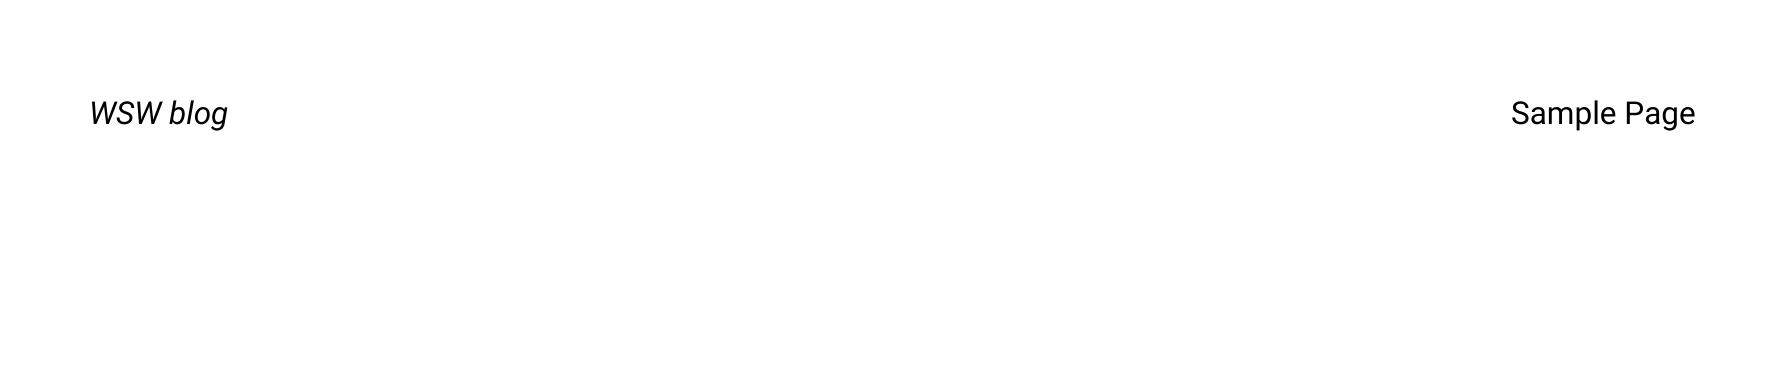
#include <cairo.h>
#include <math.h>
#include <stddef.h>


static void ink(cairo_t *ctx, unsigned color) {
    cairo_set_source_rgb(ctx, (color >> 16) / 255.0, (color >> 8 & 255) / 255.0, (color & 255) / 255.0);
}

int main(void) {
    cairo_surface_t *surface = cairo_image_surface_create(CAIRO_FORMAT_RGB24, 1784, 374);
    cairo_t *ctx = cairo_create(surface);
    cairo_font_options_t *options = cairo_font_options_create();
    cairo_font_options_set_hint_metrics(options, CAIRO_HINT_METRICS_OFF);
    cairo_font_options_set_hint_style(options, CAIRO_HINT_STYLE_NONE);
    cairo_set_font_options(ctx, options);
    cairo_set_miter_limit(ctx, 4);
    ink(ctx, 0xFFFFFF);
    cairo_paint(ctx);
    cairo_select_font_face(ctx, "Roboto", CAIRO_FONT_SLANT_ITALIC, CAIRO_FONT_WEIGHT_NORMAL);
    cairo_set_font_size(ctx, 31.5);
    ink(ctx, 0x000000);
    cairo_move_to(ctx, 89, 124);
    cairo_show_text(ctx, "WSW blog");
    cairo_select_font_face(ctx, "Roboto", CAIRO_FONT_SLANT_NORMAL, CAIRO_FONT_WEIGHT_NORMAL);
    cairo_move_to(ctx, 1511, 124);
    cairo_show_text(ctx, "Sample Page");
    cairo_surface_write_to_png(surface, "image.png");
    cairo_font_options_destroy(options);
    cairo_destroy(ctx);
    cairo_surface_destroy(surface);
    return 0;
}
